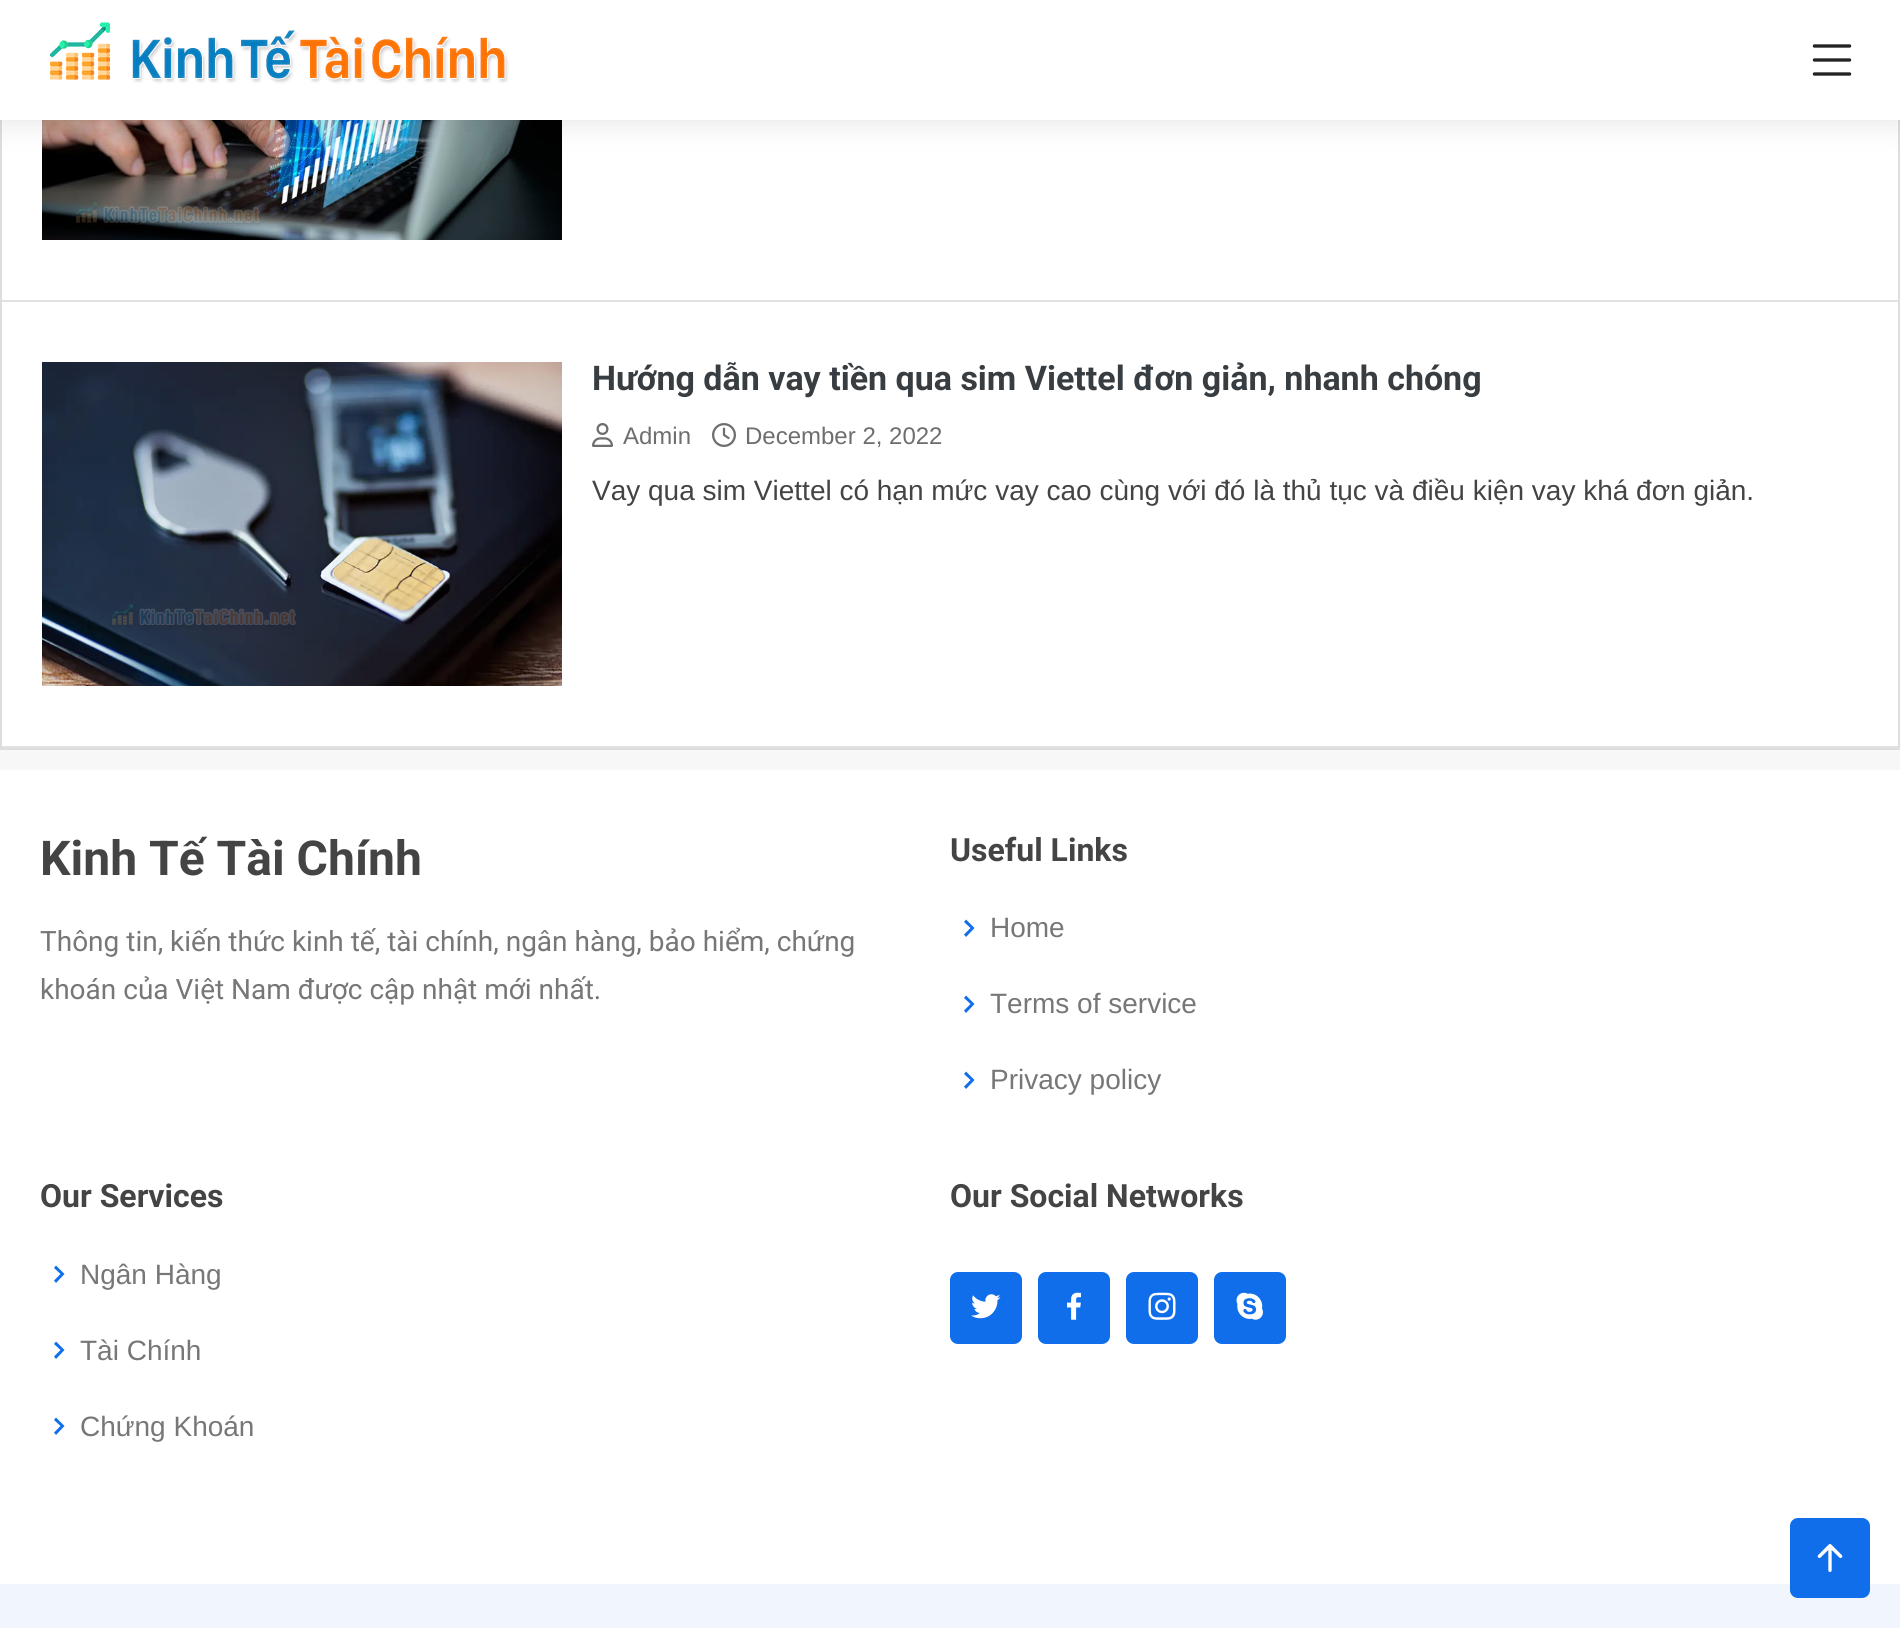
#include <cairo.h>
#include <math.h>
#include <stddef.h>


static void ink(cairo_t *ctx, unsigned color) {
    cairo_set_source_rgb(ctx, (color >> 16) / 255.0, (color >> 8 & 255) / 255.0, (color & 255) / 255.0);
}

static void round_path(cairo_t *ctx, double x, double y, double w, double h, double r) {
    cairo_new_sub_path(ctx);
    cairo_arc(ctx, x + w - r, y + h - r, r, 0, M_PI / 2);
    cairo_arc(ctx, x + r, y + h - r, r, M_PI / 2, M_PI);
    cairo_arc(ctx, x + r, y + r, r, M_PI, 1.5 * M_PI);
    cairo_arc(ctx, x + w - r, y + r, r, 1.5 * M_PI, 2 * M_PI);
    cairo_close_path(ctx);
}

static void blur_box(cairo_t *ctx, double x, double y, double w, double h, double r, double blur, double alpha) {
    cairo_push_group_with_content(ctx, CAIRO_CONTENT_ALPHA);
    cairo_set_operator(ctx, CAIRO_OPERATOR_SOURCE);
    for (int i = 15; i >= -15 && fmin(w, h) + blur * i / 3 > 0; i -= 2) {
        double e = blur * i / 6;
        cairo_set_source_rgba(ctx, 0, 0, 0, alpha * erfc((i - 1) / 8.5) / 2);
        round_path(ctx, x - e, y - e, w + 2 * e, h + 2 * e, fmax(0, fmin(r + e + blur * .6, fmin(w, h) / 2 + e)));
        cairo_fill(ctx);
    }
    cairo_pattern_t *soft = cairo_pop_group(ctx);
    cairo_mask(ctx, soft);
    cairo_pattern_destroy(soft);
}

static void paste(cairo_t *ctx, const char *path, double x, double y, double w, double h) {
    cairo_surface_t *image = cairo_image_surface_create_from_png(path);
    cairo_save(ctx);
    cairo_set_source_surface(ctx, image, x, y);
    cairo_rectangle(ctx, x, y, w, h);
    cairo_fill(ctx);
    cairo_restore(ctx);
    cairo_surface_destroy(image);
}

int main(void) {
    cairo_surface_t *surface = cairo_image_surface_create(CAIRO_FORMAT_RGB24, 1900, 1628);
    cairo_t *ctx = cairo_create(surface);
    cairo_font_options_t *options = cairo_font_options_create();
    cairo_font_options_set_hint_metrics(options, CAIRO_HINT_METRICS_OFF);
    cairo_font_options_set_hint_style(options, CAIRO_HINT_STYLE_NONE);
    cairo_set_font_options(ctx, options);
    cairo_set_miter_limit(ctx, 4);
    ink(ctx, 0xF7F7F7);
    cairo_paint(ctx);
    ink(ctx, 0xFFFFFF);
    cairo_rectangle(ctx, 2, 120, 1896, 626);
    cairo_fill(ctx);
    cairo_rectangle(ctx, 1, -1, 1898, 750);
    ink(ctx, 0xDDDDDD);
    cairo_stroke(ctx);
    paste(ctx, "media/3.png", 42, 120, 520, 120);
    ink(ctx, 0x000000);
    blur_box(ctx, 0, 4, 1900, 120, 0, 15, 0.1);
    ink(ctx, 0xFFFFFF);
    cairo_rectangle(ctx, 0, 0, 1900, 120);
    cairo_fill(ctx);
    paste(ctx, "media/1.png", 50, 22, 459, 62);
    paste(ctx, "media/2.png", 1812, 44, 40, 32);
    ink(ctx, 0xE2E2E2);
    cairo_rectangle(ctx, 2, 300, 1896, 2);
    cairo_fill(ctx);
    cairo_rectangle(ctx, 2, 746, 1896, 2);
    cairo_fill(ctx);
    paste(ctx, "media/4.png", 42, 362, 520, 324);
    cairo_select_font_face(ctx, "Roboto", CAIRO_FONT_SLANT_NORMAL, CAIRO_FONT_WEIGHT_BOLD);
    cairo_set_font_size(ctx, 34);
    ink(ctx, 0x383D41);
    cairo_move_to(ctx, 592, 390);
    cairo_show_text(ctx, "Hướng dẫn vay tiền qua sim Viettel đơn giản, nhanh chóng");
    paste(ctx, "media/5.png", 592, 423, 21, 24);
    cairo_select_font_face(ctx, "Liberation Sans", CAIRO_FONT_SLANT_NORMAL, CAIRO_FONT_WEIGHT_NORMAL);
    cairo_set_font_size(ctx, 24);
    ink(ctx, 0x6E6E6E);
    cairo_move_to(ctx, 623, 444);
    cairo_show_text(ctx, "Admin");
    paste(ctx, "media/6.png", 712, 423, 24, 24);
    cairo_move_to(ctx, 745, 444);
    cairo_show_text(ctx, "December 2, 2022");
    cairo_set_font_size(ctx, 28);
    ink(ctx, 0x444444);
    cairo_move_to(ctx, 592, 500);
    cairo_show_text(ctx, "Vay qua sim Viettel có hạn mức vay cao cùng với đó là thủ tục và điều kiện vay khá đơn giản.");
    ink(ctx, 0xF1F6FE);
    cairo_rectangle(ctx, 0, 1584, 1900, 44);
    cairo_fill(ctx);
    ink(ctx, 0xFFFFFF);
    cairo_rectangle(ctx, 0, 770, 1900, 814);
    cairo_fill(ctx);
    cairo_select_font_face(ctx, "Roboto", CAIRO_FONT_SLANT_NORMAL, CAIRO_FONT_WEIGHT_BOLD);
    cairo_set_font_size(ctx, 48);
    ink(ctx, 0x444444);
    cairo_move_to(ctx, 40, 875);
    cairo_show_text(ctx, "Kinh Tế Tài Chính");
    cairo_select_font_face(ctx, "Roboto", CAIRO_FONT_SLANT_NORMAL, CAIRO_FONT_WEIGHT_NORMAL);
    cairo_set_font_size(ctx, 28);
    ink(ctx, 0x777777);
    cairo_move_to(ctx, 40, 951);
    cairo_show_text(ctx, "Thông tin, kiến thức kinh tế, tài chính, ngân hàng, bảo hiểm, chứng");
    cairo_move_to(ctx, 40, 999);
    cairo_show_text(ctx, "khoán của Việt Nam được cập nhật mới nhất.");
    cairo_select_font_face(ctx, "Roboto", CAIRO_FONT_SLANT_NORMAL, CAIRO_FONT_WEIGHT_BOLD);
    cairo_set_font_size(ctx, 32);
    ink(ctx, 0x444444);
    cairo_move_to(ctx, 950, 861);
    cairo_show_text(ctx, "Useful Links");
    ink(ctx, 0x106EEA);
    cairo_new_path(ctx);
    cairo_move_to(ctx, 966, 937);
    cairo_line_to(ctx, 974.5, 928);
    cairo_line_to(ctx, 966, 919.5);
    cairo_line_to(ctx, 964, 922);
    cairo_line_to(ctx, 970.5, 928);
    cairo_line_to(ctx, 964, 934.5);
    cairo_close_path(ctx);
    cairo_fill(ctx);
    cairo_select_font_face(ctx, "Liberation Sans", CAIRO_FONT_SLANT_NORMAL, CAIRO_FONT_WEIGHT_NORMAL);
    cairo_set_font_size(ctx, 28);
    ink(ctx, 0x777777);
    cairo_move_to(ctx, 990, 937);
    cairo_show_text(ctx, "Home");
    ink(ctx, 0x106EEA);
    cairo_new_path(ctx);
    cairo_move_to(ctx, 966, 1013);
    cairo_line_to(ctx, 974.5, 1004);
    cairo_line_to(ctx, 966, 995.5);
    cairo_line_to(ctx, 964, 998);
    cairo_line_to(ctx, 970.5, 1004);
    cairo_line_to(ctx, 964, 1010.5);
    cairo_close_path(ctx);
    cairo_fill(ctx);
    ink(ctx, 0x777777);
    cairo_move_to(ctx, 990, 1013);
    cairo_show_text(ctx, "Terms of service");
    ink(ctx, 0x106EEA);
    cairo_new_path(ctx);
    cairo_move_to(ctx, 966, 1089);
    cairo_line_to(ctx, 974.5, 1080);
    cairo_line_to(ctx, 966, 1071.5);
    cairo_line_to(ctx, 964, 1074);
    cairo_line_to(ctx, 970.5, 1080);
    cairo_line_to(ctx, 964, 1086.5);
    cairo_close_path(ctx);
    cairo_fill(ctx);
    ink(ctx, 0x777777);
    cairo_move_to(ctx, 990, 1089);
    cairo_show_text(ctx, "Privacy policy");
    cairo_select_font_face(ctx, "Roboto", CAIRO_FONT_SLANT_NORMAL, CAIRO_FONT_WEIGHT_BOLD);
    cairo_set_font_size(ctx, 32);
    ink(ctx, 0x444444);
    cairo_move_to(ctx, 40, 1207);
    cairo_show_text(ctx, "Our Services");
    ink(ctx, 0x106EEA);
    cairo_new_path(ctx);
    cairo_move_to(ctx, 56, 1283);
    cairo_line_to(ctx, 64.5, 1274);
    cairo_line_to(ctx, 56, 1265.5);
    cairo_line_to(ctx, 54, 1268);
    cairo_line_to(ctx, 60.5, 1274);
    cairo_line_to(ctx, 54, 1280.5);
    cairo_close_path(ctx);
    cairo_fill(ctx);
    cairo_select_font_face(ctx, "Liberation Sans", CAIRO_FONT_SLANT_NORMAL, CAIRO_FONT_WEIGHT_NORMAL);
    cairo_set_font_size(ctx, 28);
    ink(ctx, 0x777777);
    cairo_move_to(ctx, 80, 1284);
    cairo_show_text(ctx, "Ngân Hàng");
    ink(ctx, 0x106EEA);
    cairo_new_path(ctx);
    cairo_move_to(ctx, 56, 1359);
    cairo_line_to(ctx, 64.5, 1350);
    cairo_line_to(ctx, 56, 1341.5);
    cairo_line_to(ctx, 54, 1344);
    cairo_line_to(ctx, 60.5, 1350);
    cairo_line_to(ctx, 54, 1356.5);
    cairo_close_path(ctx);
    cairo_fill(ctx);
    ink(ctx, 0x777777);
    cairo_move_to(ctx, 80, 1360);
    cairo_show_text(ctx, "Tài Chính");
    ink(ctx, 0x106EEA);
    cairo_new_path(ctx);
    cairo_move_to(ctx, 56, 1435);
    cairo_line_to(ctx, 64.5, 1426);
    cairo_line_to(ctx, 56, 1417.5);
    cairo_line_to(ctx, 54, 1420);
    cairo_line_to(ctx, 60.5, 1426);
    cairo_line_to(ctx, 54, 1432.5);
    cairo_close_path(ctx);
    cairo_fill(ctx);
    ink(ctx, 0x777777);
    cairo_move_to(ctx, 80, 1436);
    cairo_show_text(ctx, "Chứng Khoán");
    cairo_select_font_face(ctx, "Roboto", CAIRO_FONT_SLANT_NORMAL, CAIRO_FONT_WEIGHT_BOLD);
    cairo_set_font_size(ctx, 32);
    ink(ctx, 0x444444);
    cairo_move_to(ctx, 950, 1207);
    cairo_show_text(ctx, "Our Social Networks");
    ink(ctx, 0x106EEA);
    round_path(ctx, 950, 1272, 72, 72, 8);
    cairo_fill(ctx);
    paste(ctx, "media/7.png", 971, 1294, 30, 25);
    round_path(ctx, 1038, 1272, 72, 72, 8);
    cairo_fill(ctx);
    paste(ctx, "media/8.png", 1067, 1292, 14, 28);
    round_path(ctx, 1126, 1272, 72, 72, 8);
    cairo_fill(ctx);
    paste(ctx, "media/9.png", 1148, 1292, 28, 28);
    round_path(ctx, 1214, 1272, 72, 72, 8);
    cairo_fill(ctx);
    paste(ctx, "media/10.png", 1236, 1292, 27, 28);
    round_path(ctx, 1790, 1518, 80, 80, 8);
    cairo_fill(ctx);
    paste(ctx, "media/11.png", 1817, 1544, 26, 28);
    cairo_surface_write_to_png(surface, "image.png");
    cairo_font_options_destroy(options);
    cairo_destroy(ctx);
    cairo_surface_destroy(surface);
    return 0;
}
